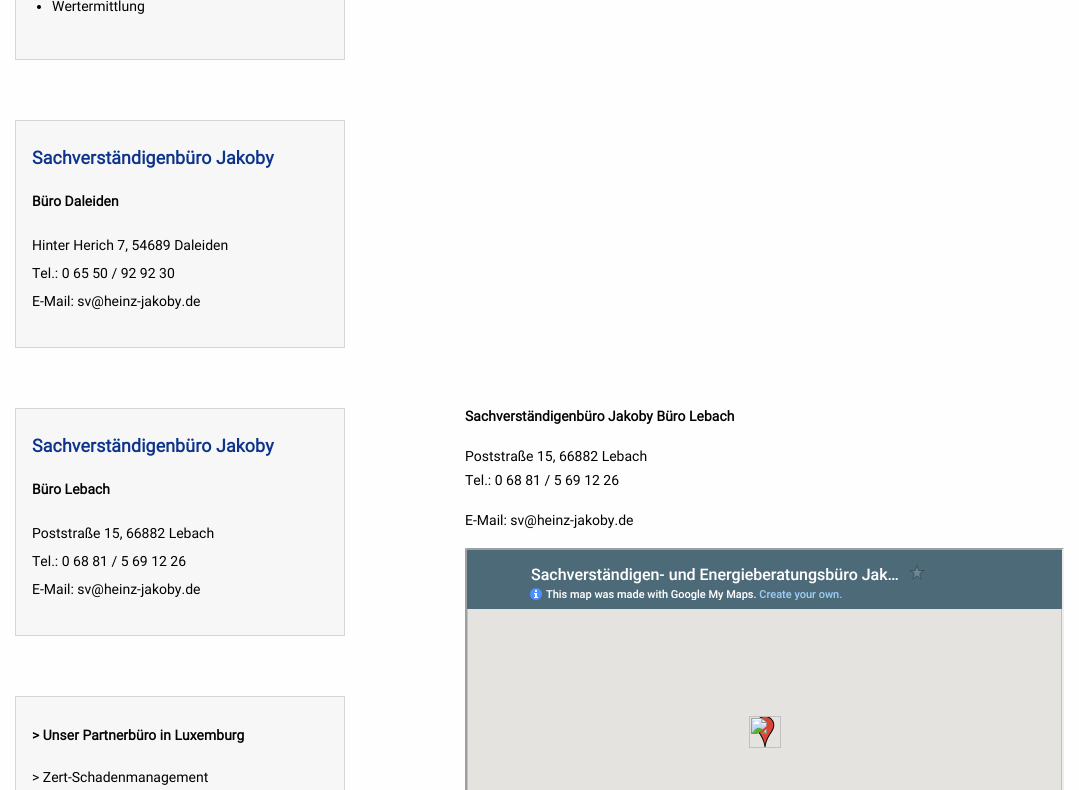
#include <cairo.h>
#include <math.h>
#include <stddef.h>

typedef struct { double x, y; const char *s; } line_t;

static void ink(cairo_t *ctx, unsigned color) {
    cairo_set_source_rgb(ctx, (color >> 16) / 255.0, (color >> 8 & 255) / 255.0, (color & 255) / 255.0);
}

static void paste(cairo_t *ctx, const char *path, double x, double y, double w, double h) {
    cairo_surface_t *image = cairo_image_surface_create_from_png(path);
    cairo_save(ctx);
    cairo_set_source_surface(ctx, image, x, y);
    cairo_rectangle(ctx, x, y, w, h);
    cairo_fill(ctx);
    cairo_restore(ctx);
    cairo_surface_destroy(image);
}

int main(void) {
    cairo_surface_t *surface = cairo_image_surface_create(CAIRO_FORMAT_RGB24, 1079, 790);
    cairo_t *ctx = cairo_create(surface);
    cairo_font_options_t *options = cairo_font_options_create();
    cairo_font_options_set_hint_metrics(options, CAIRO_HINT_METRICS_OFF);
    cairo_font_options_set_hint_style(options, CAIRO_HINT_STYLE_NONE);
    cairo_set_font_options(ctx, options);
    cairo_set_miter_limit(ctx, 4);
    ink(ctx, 0xFEFEFE);
    cairo_paint(ctx);
    ink(ctx, 0xF7F7F7);
    cairo_rectangle(ctx, 15.5, -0.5, 329, 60);
    cairo_fill_preserve(ctx);
    ink(ctx, 0xD6D6D6);
    cairo_set_line_width(ctx, 1);
    cairo_stroke(ctx);
    ink(ctx, 0x000000);
    cairo_arc(ctx, 39, 7, 2, 0, 2 * M_PI);
    cairo_fill(ctx);
    cairo_select_font_face(ctx, "Roboto", CAIRO_FONT_SLANT_NORMAL, CAIRO_FONT_WEIGHT_NORMAL);
    cairo_set_font_size(ctx, 14);
    cairo_move_to(ctx, 52, 11);
    cairo_show_text(ctx, "Wertermittlung");
    ink(ctx, 0xF7F7F7);
    cairo_rectangle(ctx, 15.5, 120.5, 329, 227);
    cairo_fill_preserve(ctx);
    ink(ctx, 0xD6D6D6);
    cairo_stroke(ctx);
    cairo_select_font_face(ctx, "Roboto", CAIRO_FONT_SLANT_NORMAL, CAIRO_FONT_WEIGHT_BOLD);
    cairo_set_font_size(ctx, 18);
    ink(ctx, 0x0D348B);
    cairo_move_to(ctx, 32, 164);
    cairo_show_text(ctx, "Sachverständigenbüro Jakoby");
    cairo_set_font_size(ctx, 14);
    ink(ctx, 0x000000);
    cairo_move_to(ctx, 32, 206);
    cairo_show_text(ctx, "Büro Daleiden");
    cairo_select_font_face(ctx, "Roboto", CAIRO_FONT_SLANT_NORMAL, CAIRO_FONT_WEIGHT_NORMAL);
    {
        static const line_t items[] = {
            {32, 250, "Hinter Herich 7, 54689 Daleiden"},
            {32, 278, "Tel.: 0 65 50 / 92 92 30"},
            {32, 306, "E-Mail: sv@heinz-jakoby.de"},
        };
        for (size_t i = 0; i < sizeof items / sizeof *items; i++) {
            cairo_move_to(ctx, items[i].x, items[i].y);
            cairo_show_text(ctx, items[i].s);
        }
    }
    ink(ctx, 0xF7F7F7);
    cairo_rectangle(ctx, 15.5, 408.5, 329, 227);
    cairo_fill_preserve(ctx);
    ink(ctx, 0xD6D6D6);
    cairo_stroke(ctx);
    cairo_select_font_face(ctx, "Roboto", CAIRO_FONT_SLANT_NORMAL, CAIRO_FONT_WEIGHT_BOLD);
    cairo_set_font_size(ctx, 18);
    ink(ctx, 0x0D348B);
    cairo_move_to(ctx, 32, 452);
    cairo_show_text(ctx, "Sachverständigenbüro Jakoby");
    cairo_set_font_size(ctx, 14);
    ink(ctx, 0x000000);
    cairo_move_to(ctx, 32, 494);
    cairo_show_text(ctx, "Büro Lebach");
    cairo_select_font_face(ctx, "Roboto", CAIRO_FONT_SLANT_NORMAL, CAIRO_FONT_WEIGHT_NORMAL);
    {
        static const line_t items[] = {
            {32, 538, "Poststraße 15, 66882 Lebach"},
            {32, 566, "Tel.: 0 68 81 / 5 69 12 26"},
            {32, 594, "E-Mail: sv@heinz-jakoby.de"},
        };
        for (size_t i = 0; i < sizeof items / sizeof *items; i++) {
            cairo_move_to(ctx, items[i].x, items[i].y);
            cairo_show_text(ctx, items[i].s);
        }
    }
    ink(ctx, 0xF7F7F7);
    cairo_rectangle(ctx, 15.5, 696.5, 329, 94);
    cairo_fill_preserve(ctx);
    ink(ctx, 0xD6D6D6);
    cairo_stroke(ctx);
    cairo_select_font_face(ctx, "Roboto", CAIRO_FONT_SLANT_NORMAL, CAIRO_FONT_WEIGHT_BOLD);
    ink(ctx, 0x000000);
    cairo_move_to(ctx, 32, 740);
    cairo_show_text(ctx, "> Unser Partnerbüro in Luxemburg");
    cairo_select_font_face(ctx, "Roboto", CAIRO_FONT_SLANT_NORMAL, CAIRO_FONT_WEIGHT_NORMAL);
    cairo_move_to(ctx, 32, 782);
    cairo_show_text(ctx, "> Zert-Schadenmanagement");
    cairo_select_font_face(ctx, "Roboto", CAIRO_FONT_SLANT_NORMAL, CAIRO_FONT_WEIGHT_BOLD);
    cairo_move_to(ctx, 465, 421);
    cairo_show_text(ctx, "Sachverständigenbüro Jakoby Büro Lebach");
    cairo_select_font_face(ctx, "Roboto", CAIRO_FONT_SLANT_NORMAL, CAIRO_FONT_WEIGHT_NORMAL);
    {
        static const line_t items[] = {
            {465, 461, "Poststraße 15, 66882 Lebach"},
            {465, 485, "Tel.: 0 68 81 / 5 69 12 26"},
            {465, 525, "E-Mail: sv@heinz-jakoby.de"},
        };
        for (size_t i = 0; i < sizeof items / sizeof *items; i++) {
            cairo_move_to(ctx, items[i].x, items[i].y);
            cairo_show_text(ctx, items[i].s);
        }
    }
    ink(ctx, 0x9F9F9F);
    cairo_new_path(ctx);
    cairo_move_to(ctx, 465, 548);
    cairo_line_to(ctx, 1064, 548);
    cairo_line_to(ctx, 1062, 550);
    cairo_line_to(ctx, 467, 550);
    cairo_close_path(ctx);
    cairo_fill(ctx);
    cairo_new_path(ctx);
    cairo_move_to(ctx, 465, 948);
    cairo_line_to(ctx, 465, 548);
    cairo_line_to(ctx, 467, 550);
    cairo_line_to(ctx, 467, 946);
    cairo_close_path(ctx);
    cairo_fill(ctx);
    paste(ctx, "media/1.png", 467, 550, 595, 240);
    ink(ctx, 0xEEEEEE);
    cairo_new_path(ctx);
    cairo_move_to(ctx, 1064, 548);
    cairo_line_to(ctx, 1064, 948);
    cairo_line_to(ctx, 1062, 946);
    cairo_line_to(ctx, 1062, 550);
    cairo_close_path(ctx);
    cairo_fill(ctx);
    cairo_surface_write_to_png(surface, "image.png");
    cairo_font_options_destroy(options);
    cairo_destroy(ctx);
    cairo_surface_destroy(surface);
    return 0;
}
